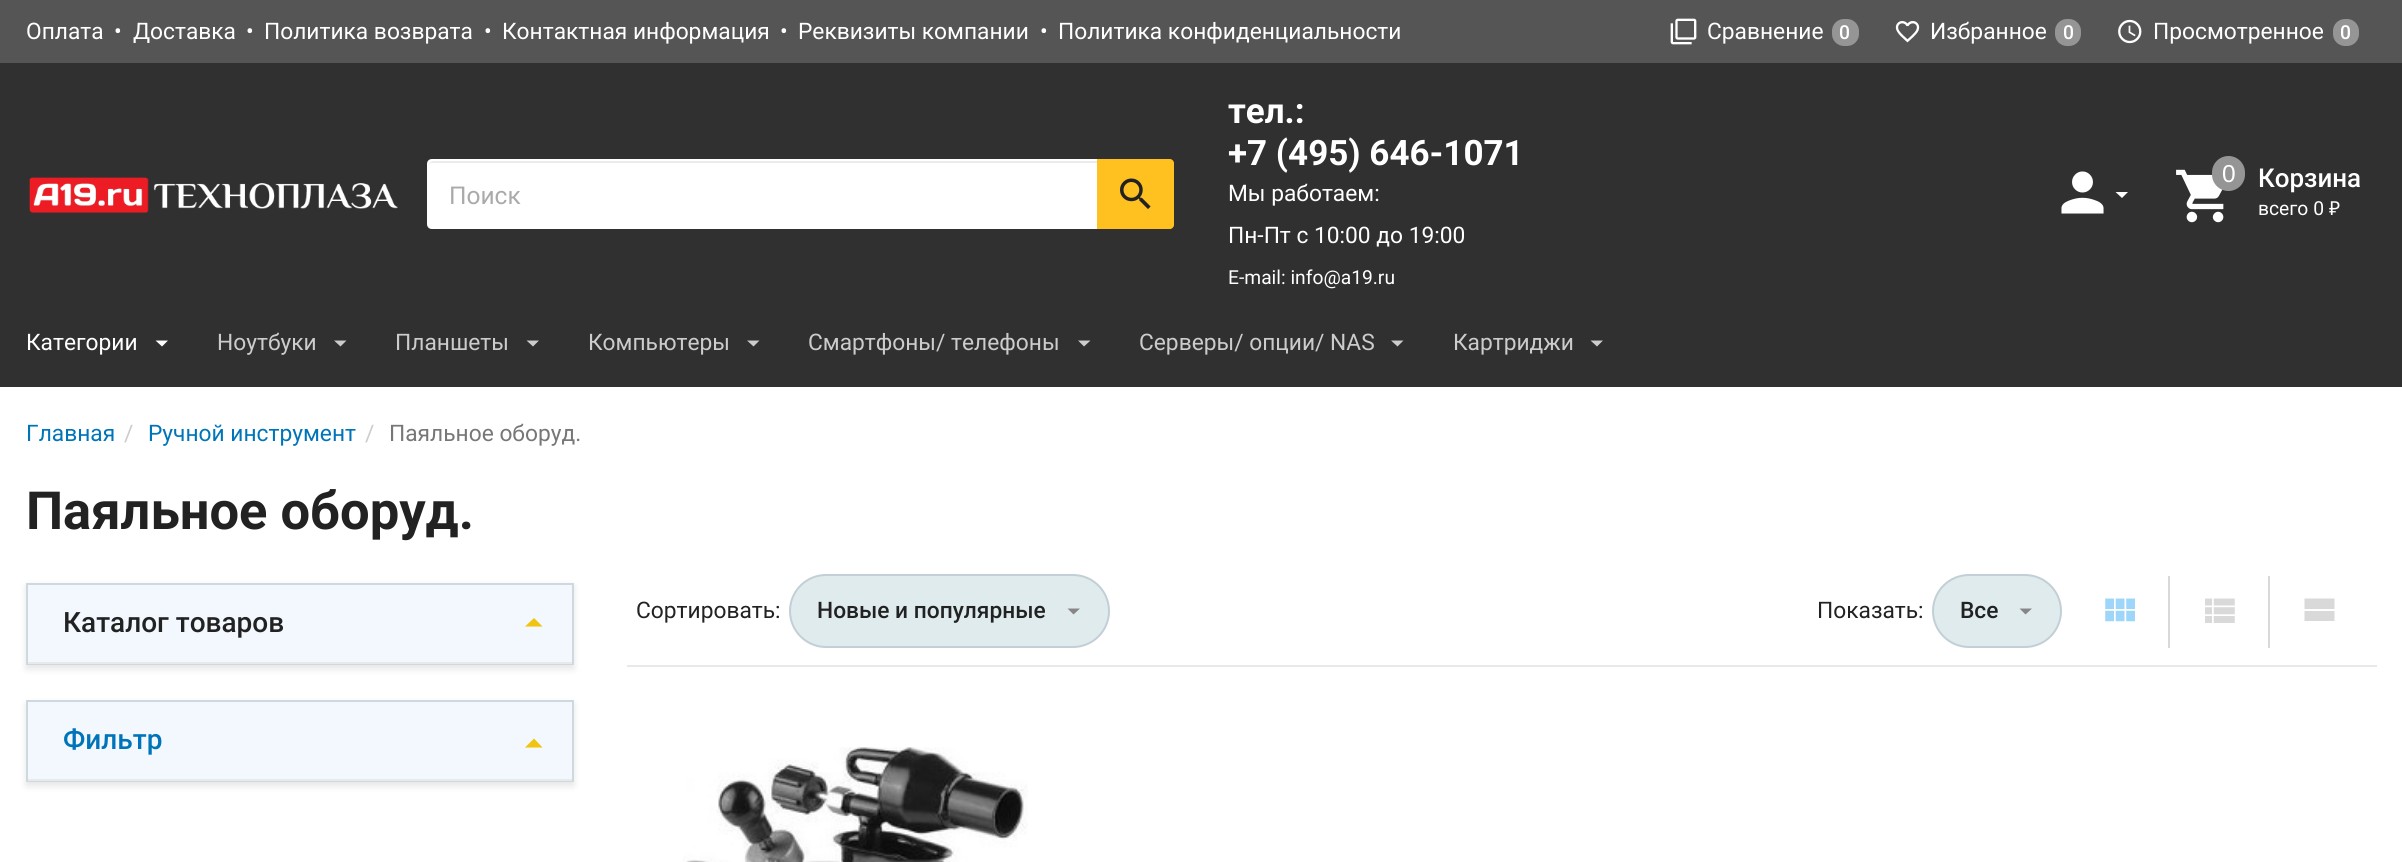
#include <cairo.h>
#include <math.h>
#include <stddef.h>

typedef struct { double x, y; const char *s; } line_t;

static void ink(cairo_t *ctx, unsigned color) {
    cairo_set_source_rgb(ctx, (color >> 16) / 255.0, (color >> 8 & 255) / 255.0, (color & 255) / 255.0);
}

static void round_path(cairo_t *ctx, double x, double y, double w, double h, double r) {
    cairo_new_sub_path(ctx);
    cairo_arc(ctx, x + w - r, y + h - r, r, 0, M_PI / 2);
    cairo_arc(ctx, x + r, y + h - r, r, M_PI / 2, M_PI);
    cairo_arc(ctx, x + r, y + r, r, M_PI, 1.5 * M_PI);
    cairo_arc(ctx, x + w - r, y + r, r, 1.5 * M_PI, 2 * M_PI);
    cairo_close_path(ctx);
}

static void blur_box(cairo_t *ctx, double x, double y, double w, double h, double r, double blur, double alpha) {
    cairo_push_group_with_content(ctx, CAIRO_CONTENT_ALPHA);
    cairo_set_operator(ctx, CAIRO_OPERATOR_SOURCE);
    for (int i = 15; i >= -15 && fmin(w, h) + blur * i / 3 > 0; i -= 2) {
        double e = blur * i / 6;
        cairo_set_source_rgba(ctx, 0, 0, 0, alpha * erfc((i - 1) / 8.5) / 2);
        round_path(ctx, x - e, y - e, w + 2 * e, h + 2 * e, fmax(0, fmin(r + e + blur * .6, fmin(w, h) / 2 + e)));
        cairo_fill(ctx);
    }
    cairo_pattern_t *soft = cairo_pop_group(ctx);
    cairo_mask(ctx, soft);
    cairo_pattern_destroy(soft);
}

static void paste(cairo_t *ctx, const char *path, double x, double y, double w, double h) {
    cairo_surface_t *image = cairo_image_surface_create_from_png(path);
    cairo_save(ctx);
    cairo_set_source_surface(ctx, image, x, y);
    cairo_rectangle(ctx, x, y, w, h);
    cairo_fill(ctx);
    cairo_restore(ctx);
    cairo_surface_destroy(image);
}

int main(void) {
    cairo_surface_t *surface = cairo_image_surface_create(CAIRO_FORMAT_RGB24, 2402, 862);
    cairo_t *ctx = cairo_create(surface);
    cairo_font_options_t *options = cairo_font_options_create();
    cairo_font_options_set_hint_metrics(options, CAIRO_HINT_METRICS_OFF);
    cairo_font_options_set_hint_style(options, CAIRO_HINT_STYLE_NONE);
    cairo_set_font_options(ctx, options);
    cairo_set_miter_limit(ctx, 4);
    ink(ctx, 0xFFFFFF);
    cairo_paint(ctx);
    ink(ctx, 0x555555);
    cairo_rectangle(ctx, 0, 0, 2402, 63);
    cairo_fill(ctx);
    cairo_select_font_face(ctx, "Roboto", CAIRO_FONT_SLANT_NORMAL, CAIRO_FONT_WEIGHT_NORMAL);
    cairo_set_font_size(ctx, 22.75);
    ink(ctx, 0xFFFFFF);
    {
        static const line_t items[] = {
            {26, 39, "Оплата"},
            {114, 39, "•"},
            {133, 39, "Доставка"},
            {246, 39, "•"},
            {264, 39, "Политика возврата"},
            {484, 39, "•"},
            {502, 39, "Контактная информация"},
            {780, 39, "•"},
            {798, 39, "Реквизиты компании"},
            {1040, 39, "•"},
            {1058, 39, "Политика конфиденциальности"},
        };
        for (size_t i = 0; i < sizeof items / sizeof *items; i++) {
            cairo_move_to(ctx, items[i].x, items[i].y);
            cairo_show_text(ctx, items[i].s);
        }
    }
    paste(ctx, "media/1.png", 1670, 18, 27, 27);
    cairo_move_to(ctx, 1707, 39);
    cairo_show_text(ctx, "Сравнение");
    ink(ctx, 0x959595);
    round_path(ctx, 1832, 19, 27, 27, 12);
    cairo_fill(ctx);
    cairo_select_font_face(ctx, "Roboto Medium", CAIRO_FONT_SLANT_NORMAL, CAIRO_FONT_WEIGHT_NORMAL);
    cairo_set_font_size(ctx, 19.25);
    ink(ctx, 0xFFFFFF);
    cairo_move_to(ctx, 1839, 39);
    cairo_show_text(ctx, "0");
    paste(ctx, "media/2.png", 1895, 21, 25, 22);
    cairo_select_font_face(ctx, "Roboto", CAIRO_FONT_SLANT_NORMAL, CAIRO_FONT_WEIGHT_NORMAL);
    cairo_set_font_size(ctx, 22.75);
    cairo_move_to(ctx, 1930, 39);
    cairo_show_text(ctx, "Избранное");
    ink(ctx, 0x959595);
    round_path(ctx, 2055, 19, 26, 27, 12);
    cairo_fill(ctx);
    cairo_select_font_face(ctx, "Roboto Medium", CAIRO_FONT_SLANT_NORMAL, CAIRO_FONT_WEIGHT_NORMAL);
    cairo_set_font_size(ctx, 19.25);
    ink(ctx, 0xFFFFFF);
    cairo_move_to(ctx, 2063, 39);
    cairo_show_text(ctx, "0");
    paste(ctx, "media/3.png", 2118, 19, 24, 25);
    cairo_select_font_face(ctx, "Roboto", CAIRO_FONT_SLANT_NORMAL, CAIRO_FONT_WEIGHT_NORMAL);
    cairo_set_font_size(ctx, 22.75);
    cairo_move_to(ctx, 2153, 39);
    cairo_show_text(ctx, "Просмотренное");
    ink(ctx, 0x959595);
    round_path(ctx, 2333, 19, 26, 27, 12);
    cairo_fill(ctx);
    cairo_select_font_face(ctx, "Roboto Medium", CAIRO_FONT_SLANT_NORMAL, CAIRO_FONT_WEIGHT_NORMAL);
    cairo_set_font_size(ctx, 19.25);
    ink(ctx, 0xFFFFFF);
    cairo_move_to(ctx, 2340, 39);
    cairo_show_text(ctx, "0");
    ink(ctx, 0x303030);
    cairo_rectangle(ctx, 0, 63, 2402, 324);
    cairo_fill(ctx);
    paste(ctx, "media/4.png", 29, 177, 369, 36);
    ink(ctx, 0xFFFFFF);
    cairo_new_path(ctx);
    cairo_move_to(ctx, 432, 159);
    cairo_line_to(ctx, 1099, 159);
    cairo_line_to(ctx, 1099, 229);
    cairo_line_to(ctx, 432, 229);
    cairo_curve_to(ctx, 429, 229, 427, 227, 427, 224);
    cairo_line_to(ctx, 427, 164);
    cairo_curve_to(ctx, 427, 161, 429, 159, 432, 159);
    cairo_close_path(ctx);
    cairo_fill(ctx);
    ink(ctx, 0xECECEC);
    cairo_new_path(ctx);
    cairo_move_to(ctx, 432, 163);
    cairo_line_to(ctx, 1097, 163);
    cairo_line_to(ctx, 1097, 161);
    cairo_line_to(ctx, 433, 161);
    cairo_curve_to(ctx, 431, 161, 429, 163, 429, 165);
    cairo_line_to(ctx, 429, 166);
    cairo_curve_to(ctx, 429, 164, 430, 163, 432, 163);
    cairo_close_path(ctx);
    cairo_fill(ctx);
    cairo_select_font_face(ctx, "Roboto", CAIRO_FONT_SLANT_NORMAL, CAIRO_FONT_WEIGHT_NORMAL);
    cairo_set_font_size(ctx, 24.5);
    ink(ctx, 0xAAAAAA);
    cairo_move_to(ctx, 449, 204);
    cairo_show_text(ctx, "Поиск");
    ink(ctx, 0xFFC120);
    cairo_new_path(ctx);
    cairo_move_to(ctx, 1097, 159);
    cairo_line_to(ctx, 1170, 159);
    cairo_curve_to(ctx, 1172, 159, 1174, 161, 1174, 163);
    cairo_line_to(ctx, 1174, 225);
    cairo_curve_to(ctx, 1174, 227, 1172, 229, 1170, 229);
    cairo_line_to(ctx, 1097, 229);
    cairo_close_path(ctx);
    cairo_fill(ctx);
    paste(ctx, "media/5.png", 1120, 178, 31, 31);
    cairo_select_font_face(ctx, "Roboto", CAIRO_FONT_SLANT_NORMAL, CAIRO_FONT_WEIGHT_BOLD);
    cairo_set_font_size(ctx, 35);
    ink(ctx, 0xFFFFFF);
    cairo_move_to(ctx, 1228, 123);
    cairo_show_text(ctx, "тел.:");
    cairo_move_to(ctx, 1228, 165);
    cairo_show_text(ctx, "+7 (495) 646-1071");
    cairo_select_font_face(ctx, "Roboto", CAIRO_FONT_SLANT_NORMAL, CAIRO_FONT_WEIGHT_NORMAL);
    cairo_set_font_size(ctx, 22.75);
    cairo_move_to(ctx, 1228, 201);
    cairo_show_text(ctx, "Мы работаем:");
    cairo_move_to(ctx, 1228, 243);
    cairo_show_text(ctx, "Пн-Пт с 10:00 до 19:00");
    cairo_set_font_size(ctx, 19.25);
    cairo_move_to(ctx, 1228, 284);
    cairo_show_text(ctx, "E-mail: info@a19.ru");
    paste(ctx, "media/6.png", 2061, 171, 43, 43);
    cairo_new_path(ctx);
    cairo_move_to(ctx, 2115.5, 192);
    cairo_line_to(ctx, 2128, 192);
    cairo_line_to(ctx, 2122, 198);
    cairo_close_path(ctx);
    cairo_fill(ctx);
    paste(ctx, "media/7.png", 2176, 169, 48, 54);
    ink(ctx, 0x959595);
    round_path(ctx, 2212, 156, 33, 35, 16.5);
    cairo_fill(ctx);
    cairo_select_font_face(ctx, "Liberation Sans", CAIRO_FONT_SLANT_NORMAL, CAIRO_FONT_WEIGHT_NORMAL);
    cairo_set_font_size(ctx, 24.5);
    ink(ctx, 0xFFFFFF);
    cairo_move_to(ctx, 2222, 182);
    cairo_show_text(ctx, "0");
    cairo_select_font_face(ctx, "Roboto Medium", CAIRO_FONT_SLANT_NORMAL, CAIRO_FONT_WEIGHT_NORMAL);
    cairo_set_font_size(ctx, 26);
    cairo_move_to(ctx, 2258, 187);
    cairo_show_text(ctx, "Корзина");
    cairo_select_font_face(ctx, "Roboto", CAIRO_FONT_SLANT_NORMAL, CAIRO_FONT_WEIGHT_NORMAL);
    cairo_set_font_size(ctx, 19.25);
    cairo_move_to(ctx, 2258, 215);
    cairo_show_text(ctx, "всего 0");
    cairo_select_font_face(ctx, "Noto Sans", CAIRO_FONT_SLANT_NORMAL, CAIRO_FONT_WEIGHT_NORMAL);
    cairo_move_to(ctx, 2329, 215);
    cairo_show_text(ctx, "₽");
    cairo_select_font_face(ctx, "Roboto", CAIRO_FONT_SLANT_NORMAL, CAIRO_FONT_WEIGHT_NORMAL);
    cairo_set_font_size(ctx, 22.75);
    cairo_move_to(ctx, 26, 350);
    cairo_show_text(ctx, "Категории");
    cairo_new_path(ctx);
    cairo_move_to(ctx, 155.5, 340.5);
    cairo_line_to(ctx, 168, 340.5);
    cairo_line_to(ctx, 162, 346.5);
    cairo_close_path(ctx);
    cairo_fill(ctx);
    ink(ctx, 0xCCCCCC);
    cairo_move_to(ctx, 217, 350);
    cairo_show_text(ctx, "Ноутбуки");
    cairo_new_path(ctx);
    cairo_move_to(ctx, 334, 340.5);
    cairo_line_to(ctx, 346.5, 340.5);
    cairo_line_to(ctx, 340.5, 346.5);
    cairo_close_path(ctx);
    cairo_fill(ctx);
    cairo_move_to(ctx, 395, 350);
    cairo_show_text(ctx, "Планшеты");
    cairo_new_path(ctx);
    cairo_move_to(ctx, 526.5, 340.5);
    cairo_line_to(ctx, 539, 340.5);
    cairo_line_to(ctx, 533, 346.5);
    cairo_close_path(ctx);
    cairo_fill(ctx);
    cairo_move_to(ctx, 588, 350);
    cairo_show_text(ctx, "Компьютеры");
    cairo_new_path(ctx);
    cairo_move_to(ctx, 747, 340.5);
    cairo_line_to(ctx, 759.5, 340.5);
    cairo_line_to(ctx, 753.5, 346.5);
    cairo_close_path(ctx);
    cairo_fill(ctx);
    cairo_move_to(ctx, 808, 350);
    cairo_show_text(ctx, "Смартфоны/ телефоны");
    cairo_new_path(ctx);
    cairo_move_to(ctx, 1078, 340.5);
    cairo_line_to(ctx, 1090.5, 340.5);
    cairo_line_to(ctx, 1084, 346.5);
    cairo_close_path(ctx);
    cairo_fill(ctx);
    cairo_move_to(ctx, 1139, 350);
    cairo_show_text(ctx, "Серверы/ опции/ NAS");
    cairo_new_path(ctx);
    cairo_move_to(ctx, 1391, 340.5);
    cairo_line_to(ctx, 1403.5, 340.5);
    cairo_line_to(ctx, 1397.5, 346.5);
    cairo_close_path(ctx);
    cairo_fill(ctx);
    cairo_move_to(ctx, 1453, 350);
    cairo_show_text(ctx, "Картриджи");
    cairo_new_path(ctx);
    cairo_move_to(ctx, 1590.5, 340.5);
    cairo_line_to(ctx, 1603, 340.5);
    cairo_line_to(ctx, 1597, 346.5);
    cairo_close_path(ctx);
    cairo_fill(ctx);
    ink(ctx, 0x0074B8);
    cairo_move_to(ctx, 26, 441);
    cairo_show_text(ctx, "Главная");
    ink(ctx, 0xCCCCCC);
    cairo_move_to(ctx, 124, 441);
    cairo_show_text(ctx, "/");
    ink(ctx, 0x0074B8);
    cairo_move_to(ctx, 148, 441);
    cairo_show_text(ctx, "Ручной инструмент");
    ink(ctx, 0xCCCCCC);
    cairo_move_to(ctx, 365, 441);
    cairo_show_text(ctx, "/");
    ink(ctx, 0x777777);
    cairo_move_to(ctx, 389, 441);
    cairo_show_text(ctx, "Паяльное оборуд.");
    cairo_select_font_face(ctx, "Roboto", CAIRO_FONT_SLANT_NORMAL, CAIRO_FONT_WEIGHT_BOLD);
    cairo_set_font_size(ctx, 52.5);
    ink(ctx, 0x222222);
    cairo_move_to(ctx, 26, 529);
    cairo_show_text(ctx, "Паяльное оборуд.");
    ink(ctx, 0x000000);
    blur_box(ctx, 26, 586, 548, 83, 0, 3.5, 0.1);
    cairo_rectangle(ctx, 27, 584, 546, 80);
    ink(ctx, 0xCDD9DF);
    cairo_stroke(ctx);
    ink(ctx, 0xF2F8FD);
    cairo_rectangle(ctx, 28, 585, 544, 77);
    cairo_fill(ctx);
    ink(ctx, 0xE9E9E9);
    cairo_rectangle(ctx, 28, 662, 544, 2);
    cairo_fill(ctx);
    cairo_select_font_face(ctx, "Roboto Medium", CAIRO_FONT_SLANT_NORMAL, CAIRO_FONT_WEIGHT_NORMAL);
    cairo_set_font_size(ctx, 28);
    ink(ctx, 0x222222);
    cairo_move_to(ctx, 63, 632);
    cairo_show_text(ctx, "Каталог товаров");
    ink(ctx, 0xF1C40F);
    cairo_new_path(ctx);
    cairo_move_to(ctx, 525, 626.5);
    cairo_line_to(ctx, 534, 618);
    cairo_line_to(ctx, 542.5, 626.5);
    cairo_close_path(ctx);
    cairo_fill(ctx);
    ink(ctx, 0x000000);
    blur_box(ctx, 26, 704, 548, 82, 0, 3.5, 0.1);
    cairo_rectangle(ctx, 27, 701, 546, 80);
    ink(ctx, 0xCDD9DF);
    cairo_stroke(ctx);
    ink(ctx, 0xF2F8FD);
    cairo_rectangle(ctx, 28, 702, 544, 77);
    cairo_fill(ctx);
    ink(ctx, 0xE9E9E9);
    cairo_rectangle(ctx, 28, 779, 544, 2);
    cairo_fill(ctx);
    ink(ctx, 0x0074B8);
    cairo_move_to(ctx, 63, 749);
    cairo_show_text(ctx, "Фильтр");
    ink(ctx, 0xF1C40F);
    cairo_new_path(ctx);
    cairo_move_to(ctx, 525, 747.5);
    cairo_line_to(ctx, 534, 738.5);
    cairo_line_to(ctx, 542.5, 747.5);
    cairo_close_path(ctx);
    cairo_fill(ctx);
    ink(ctx, 0xE9E9E9);
    cairo_rectangle(ctx, 627, 665, 1750, 2);
    cairo_fill(ctx);
    cairo_select_font_face(ctx, "Roboto", CAIRO_FONT_SLANT_NORMAL, CAIRO_FONT_WEIGHT_NORMAL);
    cairo_set_font_size(ctx, 22.75);
    ink(ctx, 0x222222);
    cairo_move_to(ctx, 636, 618);
    cairo_show_text(ctx, "Сортировать:");
    ink(ctx, 0xDFEBED);
    round_path(ctx, 790, 575, 319, 72, 36);
    cairo_fill_preserve(ctx);
    ink(ctx, 0xC2CFD6);
    cairo_stroke(ctx);
    cairo_select_font_face(ctx, "Roboto Medium", CAIRO_FONT_SLANT_NORMAL, CAIRO_FONT_WEIGHT_NORMAL);
    ink(ctx, 0x222222);
    cairo_move_to(ctx, 817, 618);
    cairo_show_text(ctx, "Новые и популярные");
    ink(ctx, 0x868686);
    cairo_new_path(ctx);
    cairo_move_to(ctx, 1067.5, 608.5);
    cairo_line_to(ctx, 1080, 608.5);
    cairo_line_to(ctx, 1073.5, 614.5);
    cairo_close_path(ctx);
    cairo_fill(ctx);
    cairo_select_font_face(ctx, "Roboto", CAIRO_FONT_SLANT_NORMAL, CAIRO_FONT_WEIGHT_NORMAL);
    ink(ctx, 0x222222);
    cairo_move_to(ctx, 1817, 618);
    cairo_show_text(ctx, "Показать:");
    ink(ctx, 0xDFEBED);
    round_path(ctx, 1933, 575, 128, 72, 36);
    cairo_fill_preserve(ctx);
    ink(ctx, 0xC2CFD6);
    cairo_stroke(ctx);
    cairo_select_font_face(ctx, "Roboto Medium", CAIRO_FONT_SLANT_NORMAL, CAIRO_FONT_WEIGHT_NORMAL);
    ink(ctx, 0x222222);
    cairo_move_to(ctx, 1960, 618);
    cairo_show_text(ctx, "Все");
    ink(ctx, 0x868686);
    cairo_new_path(ctx);
    cairo_move_to(ctx, 2019.5, 608.5);
    cairo_line_to(ctx, 2032, 608.5);
    cairo_line_to(ctx, 2025.5, 614.5);
    cairo_close_path(ctx);
    cairo_fill(ctx);
    paste(ctx, "media/8.png", 2105, 598, 30, 24);
    ink(ctx, 0xD9D9D9);
    cairo_rectangle(ctx, 2168, 576, 2, 72);
    cairo_fill(ctx);
    paste(ctx, "media/9.png", 2205, 598, 30, 25);
    cairo_rectangle(ctx, 2268, 576, 2, 72);
    cairo_fill(ctx);
    cairo_new_path(ctx);
    cairo_move_to(ctx, 2304.5, 598.5);
    cairo_line_to(ctx, 2334.5, 598.5);
    cairo_line_to(ctx, 2334.5, 609);
    cairo_line_to(ctx, 2304.5, 609);
    cairo_close_path(ctx);
    cairo_move_to(ctx, 2304.5, 621);
    cairo_line_to(ctx, 2304.5, 611);
    cairo_line_to(ctx, 2334.5, 611);
    cairo_line_to(ctx, 2334.5, 621);
    cairo_close_path(ctx);
    cairo_fill(ctx);
    paste(ctx, "media/10.png", 683, 747, 345, 115);
    cairo_surface_write_to_png(surface, "image.png");
    cairo_font_options_destroy(options);
    cairo_destroy(ctx);
    cairo_surface_destroy(surface);
    return 0;
}
